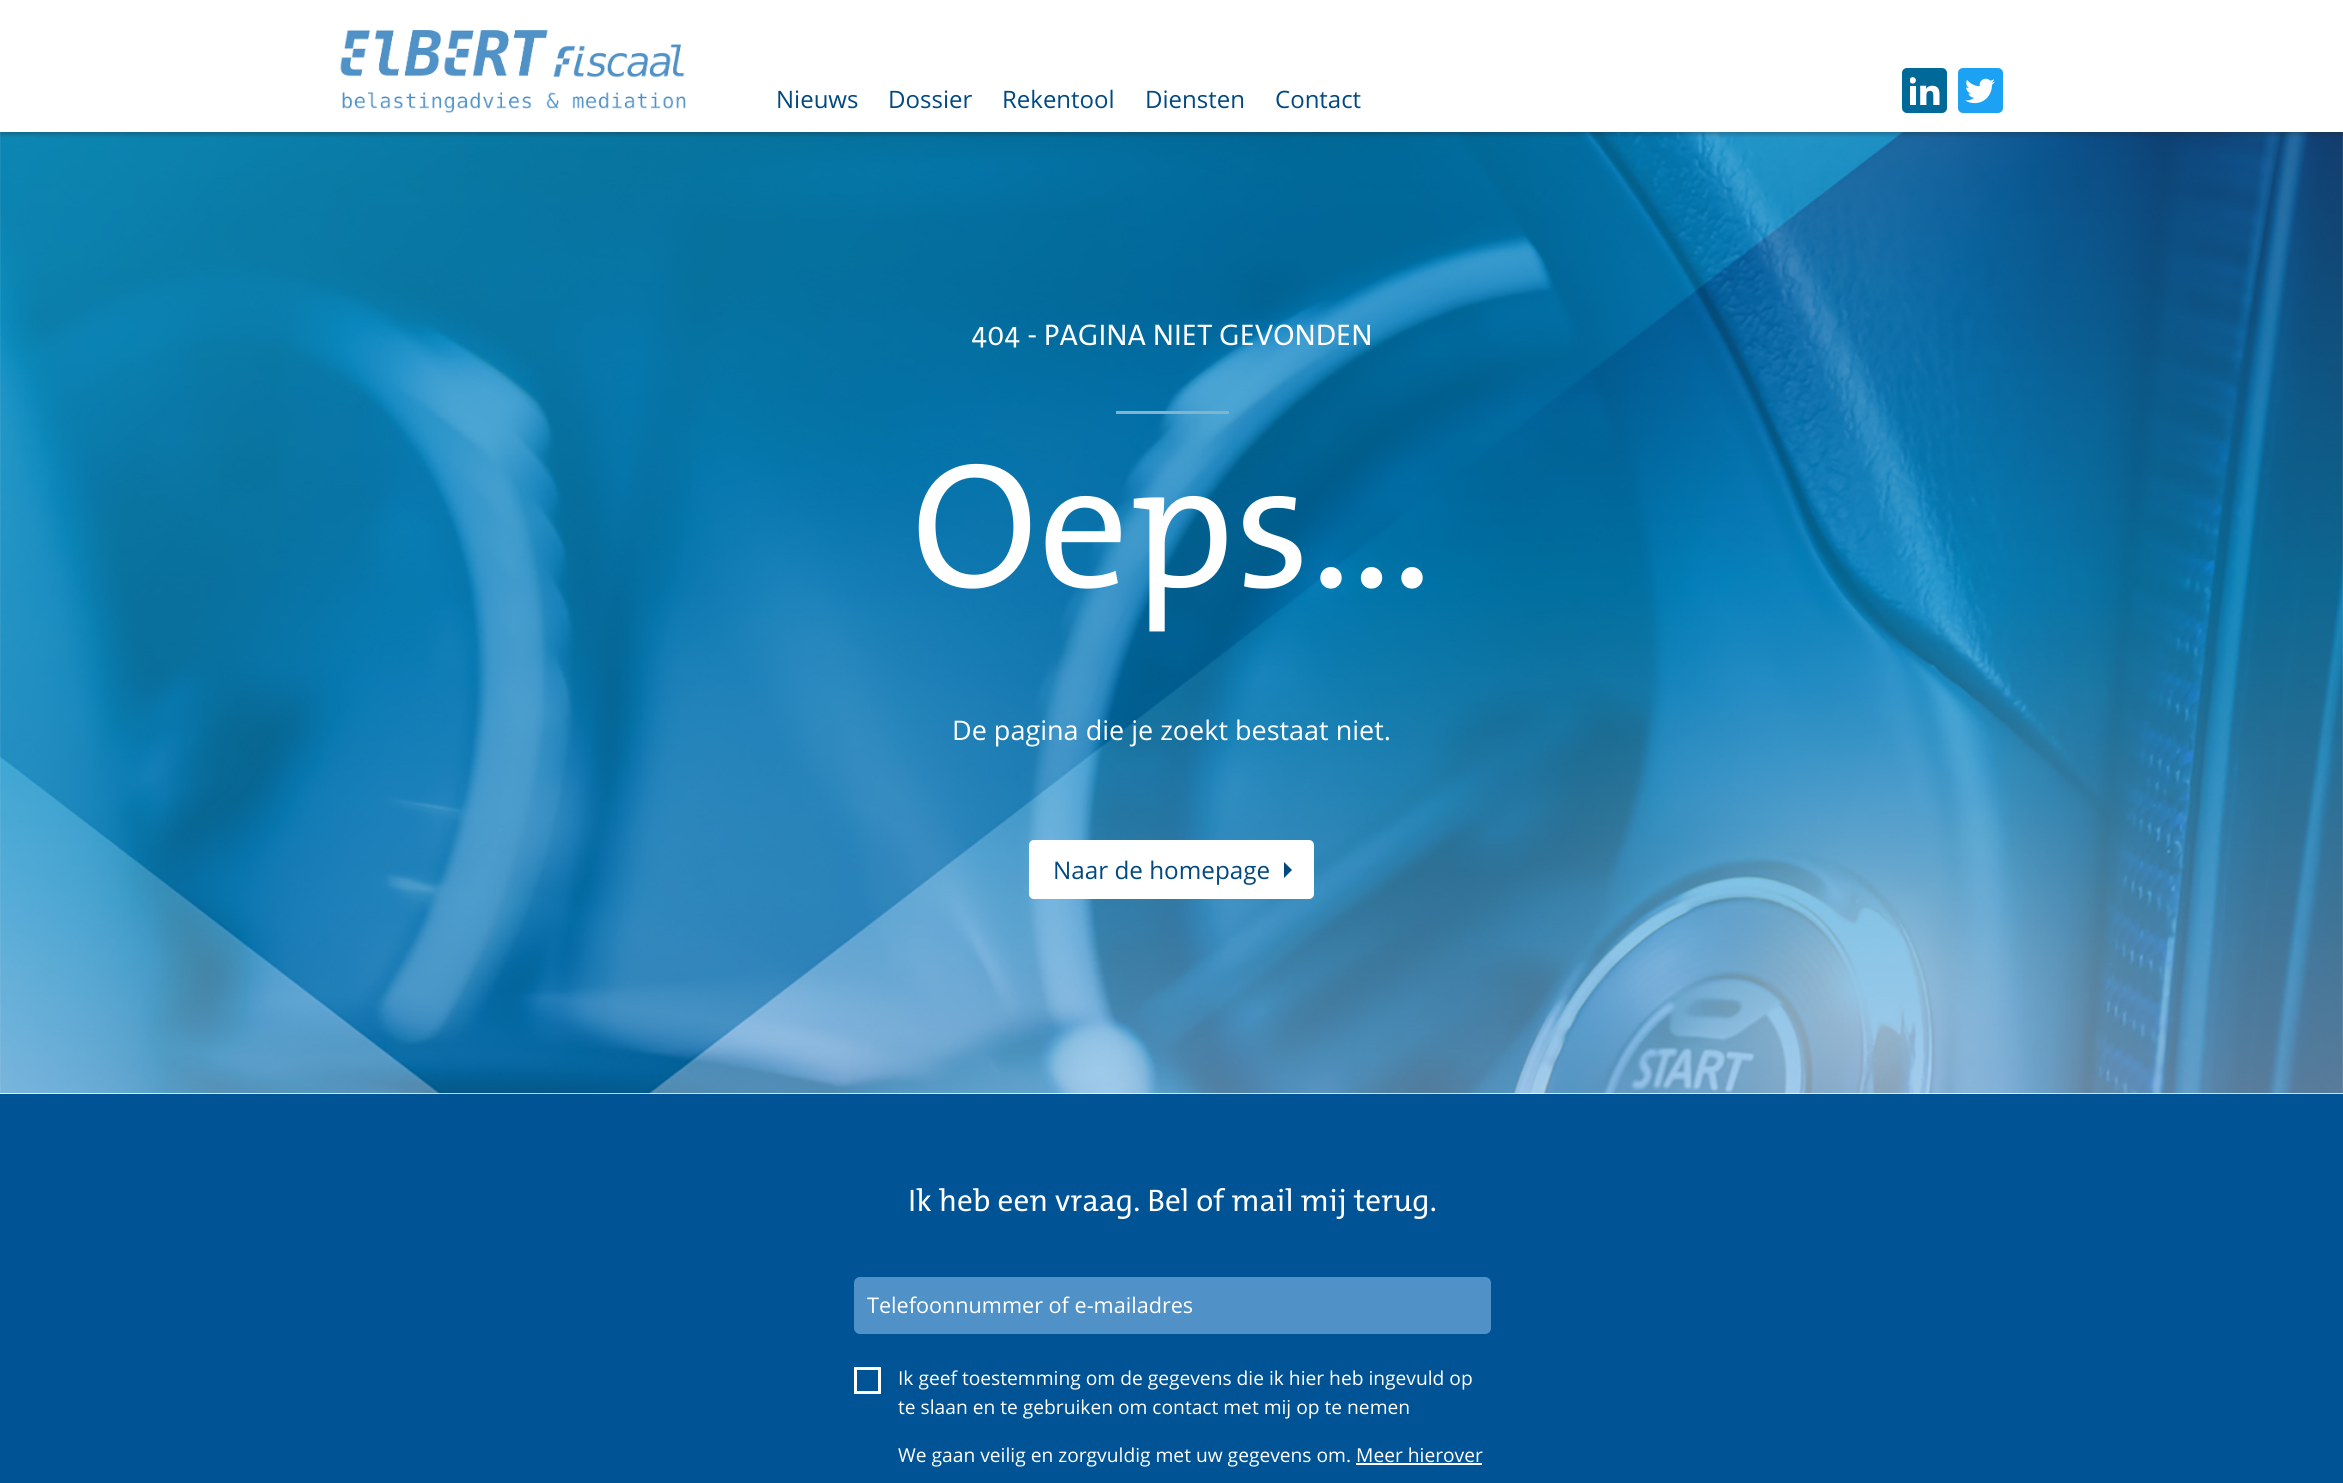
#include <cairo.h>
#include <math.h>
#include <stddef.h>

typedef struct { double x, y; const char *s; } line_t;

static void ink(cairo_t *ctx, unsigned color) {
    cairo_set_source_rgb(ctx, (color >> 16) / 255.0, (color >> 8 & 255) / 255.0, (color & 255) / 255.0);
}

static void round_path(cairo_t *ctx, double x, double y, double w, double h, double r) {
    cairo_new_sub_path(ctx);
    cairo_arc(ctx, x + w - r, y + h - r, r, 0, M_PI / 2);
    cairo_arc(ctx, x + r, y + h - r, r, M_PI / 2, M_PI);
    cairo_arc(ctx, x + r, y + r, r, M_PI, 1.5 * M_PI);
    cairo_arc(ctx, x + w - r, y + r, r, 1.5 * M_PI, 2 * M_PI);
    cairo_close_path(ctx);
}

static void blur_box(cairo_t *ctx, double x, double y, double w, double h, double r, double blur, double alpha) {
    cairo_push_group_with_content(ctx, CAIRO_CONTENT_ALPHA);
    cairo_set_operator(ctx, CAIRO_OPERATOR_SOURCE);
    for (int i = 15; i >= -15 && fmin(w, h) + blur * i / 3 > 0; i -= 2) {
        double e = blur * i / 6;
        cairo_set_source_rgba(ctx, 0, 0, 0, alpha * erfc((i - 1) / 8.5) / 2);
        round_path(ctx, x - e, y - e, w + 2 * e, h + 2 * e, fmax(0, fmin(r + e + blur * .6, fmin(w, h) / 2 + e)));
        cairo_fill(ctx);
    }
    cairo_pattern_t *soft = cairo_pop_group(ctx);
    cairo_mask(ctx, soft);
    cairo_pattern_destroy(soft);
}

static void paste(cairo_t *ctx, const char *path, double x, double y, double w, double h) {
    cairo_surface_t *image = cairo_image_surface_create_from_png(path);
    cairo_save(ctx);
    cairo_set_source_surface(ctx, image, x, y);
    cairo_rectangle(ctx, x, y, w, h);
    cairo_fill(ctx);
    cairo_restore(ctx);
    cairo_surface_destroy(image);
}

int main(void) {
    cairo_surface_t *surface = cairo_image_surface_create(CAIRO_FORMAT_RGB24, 2343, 1483);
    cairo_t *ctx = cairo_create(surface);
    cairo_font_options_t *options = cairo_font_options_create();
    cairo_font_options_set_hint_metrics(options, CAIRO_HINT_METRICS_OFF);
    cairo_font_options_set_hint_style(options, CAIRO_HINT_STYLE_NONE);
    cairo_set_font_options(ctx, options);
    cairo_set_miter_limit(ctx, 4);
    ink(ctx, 0xFFFFFF);
    cairo_paint(ctx);
    paste(ctx, "media/4.png", 0, 132, 2343, 962);
    ink(ctx, 0x231F20);
    blur_box(ctx, 0, 3, 2343, 132, 0, 1.5, 0.26);
    ink(ctx, 0xFFFFFF);
    cairo_rectangle(ctx, 0, 0, 2343, 132);
    cairo_fill(ctx);
    paste(ctx, "media/1.png", 340, 30, 346, 83);
    cairo_select_font_face(ctx, "Open Sans", CAIRO_FONT_SLANT_NORMAL, CAIRO_FONT_WEIGHT_NORMAL);
    cairo_set_font_size(ctx, 24);
    ink(ctx, 0x014981);
    {
        static const line_t items[] = {
            {776, 108, "Nieuws"},
            {888, 108, "Dossier"},
            {1002, 108, "Rekentool"},
            {1145, 108, "Diensten"},
            {1275, 108, "Contact"},
        };
        for (size_t i = 0; i < sizeof items / sizeof *items; i++) {
            cairo_move_to(ctx, items[i].x, items[i].y);
            cairo_show_text(ctx, items[i].s);
        }
    }
    ink(ctx, 0x006997);
    round_path(ctx, 1902, 68, 45, 45, 5);
    cairo_fill(ctx);
    paste(ctx, "media/2.png", 1910, 77, 30, 28);
    ink(ctx, 0x1DA1F2);
    round_path(ctx, 1958, 68, 45, 45, 5);
    cairo_fill(ctx);
    paste(ctx, "media/3.png", 1965, 78, 30, 26);
    cairo_select_font_face(ctx, "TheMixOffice", CAIRO_FONT_SLANT_NORMAL, CAIRO_FONT_WEIGHT_NORMAL);
    cairo_set_font_size(ctx, 30);
    ink(ctx, 0xFFFFFF);
    cairo_move_to(ctx, 971, 345);
    cairo_show_text(ctx, "404 - PAGINA NIET GEVONDEN");
    ink(ctx, 0x81B4CD);
    cairo_rectangle(ctx, 1116, 411, 113, 3);
    cairo_fill(ctx);
    cairo_set_font_size(ctx, 180);
    ink(ctx, 0xFFFFFF);
    cairo_move_to(ctx, 911, 587);
    cairo_show_text(ctx, "Oeps...");
    cairo_select_font_face(ctx, "Open Sans", CAIRO_FONT_SLANT_NORMAL, CAIRO_FONT_WEIGHT_NORMAL);
    cairo_set_font_size(ctx, 27);
    cairo_move_to(ctx, 952, 740);
    cairo_show_text(ctx, "De pagina die je zoekt bestaat niet.");
    round_path(ctx, 1029, 840, 285, 59, 5);
    cairo_fill(ctx);
    ink(ctx, 0x014981);
    cairo_new_path(ctx);
    cairo_move_to(ctx, 1284, 862);
    cairo_line_to(ctx, 1292, 870);
    cairo_line_to(ctx, 1284, 878);
    cairo_close_path(ctx);
    cairo_fill(ctx);
    cairo_set_font_size(ctx, 24.25);
    cairo_move_to(ctx, 1053, 879);
    cairo_show_text(ctx, "Naar de homepage");
    ink(ctx, 0x005496);
    cairo_rectangle(ctx, 0, 1094, 2343, 389);
    cairo_fill(ctx);
    cairo_select_font_face(ctx, "TheMixOffice", CAIRO_FONT_SLANT_NORMAL, CAIRO_FONT_WEIGHT_NORMAL);
    cairo_set_font_size(ctx, 31.25);
    ink(ctx, 0xFFFFFF);
    cairo_move_to(ctx, 908, 1211);
    cairo_show_text(ctx, "Ik heb een vraag. Bel of mail mij terug.");
    ink(ctx, 0x5092C7);
    round_path(ctx, 854, 1277, 637, 57, 6);
    cairo_fill(ctx);
    cairo_select_font_face(ctx, "Open Sans", CAIRO_FONT_SLANT_NORMAL, CAIRO_FONT_WEIGHT_NORMAL);
    cairo_set_font_size(ctx, 21.6);
    ink(ctx, 0xFFFFFF);
    cairo_move_to(ctx, 867, 1313);
    cairo_show_text(ctx, "Telefoonnummer of e-mailadres");
    cairo_rectangle(ctx, 855.5, 1368.5, 24, 24);
    cairo_set_line_width(ctx, 3);
    cairo_stroke(ctx);
    cairo_set_font_size(ctx, 19.2);
    {
        static const line_t items[] = {
            {898, 1385, "Ik geef toestemming om de gegevens die ik hier heb ingevuld op"},
            {898, 1414, "te slaan en te gebruiken om contact met mij op te nemen"},
            {898, 1462, "We gaan veilig en zorgvuldig met uw gegevens om. Meer hierover"},
        };
        for (size_t i = 0; i < sizeof items / sizeof *items; i++) {
            cairo_move_to(ctx, items[i].x, items[i].y);
            cairo_show_text(ctx, items[i].s);
        }
    }
    cairo_rectangle(ctx, 1356, 1463, 126, 2);
    cairo_fill(ctx);
    cairo_surface_write_to_png(surface, "image.png");
    cairo_font_options_destroy(options);
    cairo_destroy(ctx);
    cairo_surface_destroy(surface);
    return 0;
}
